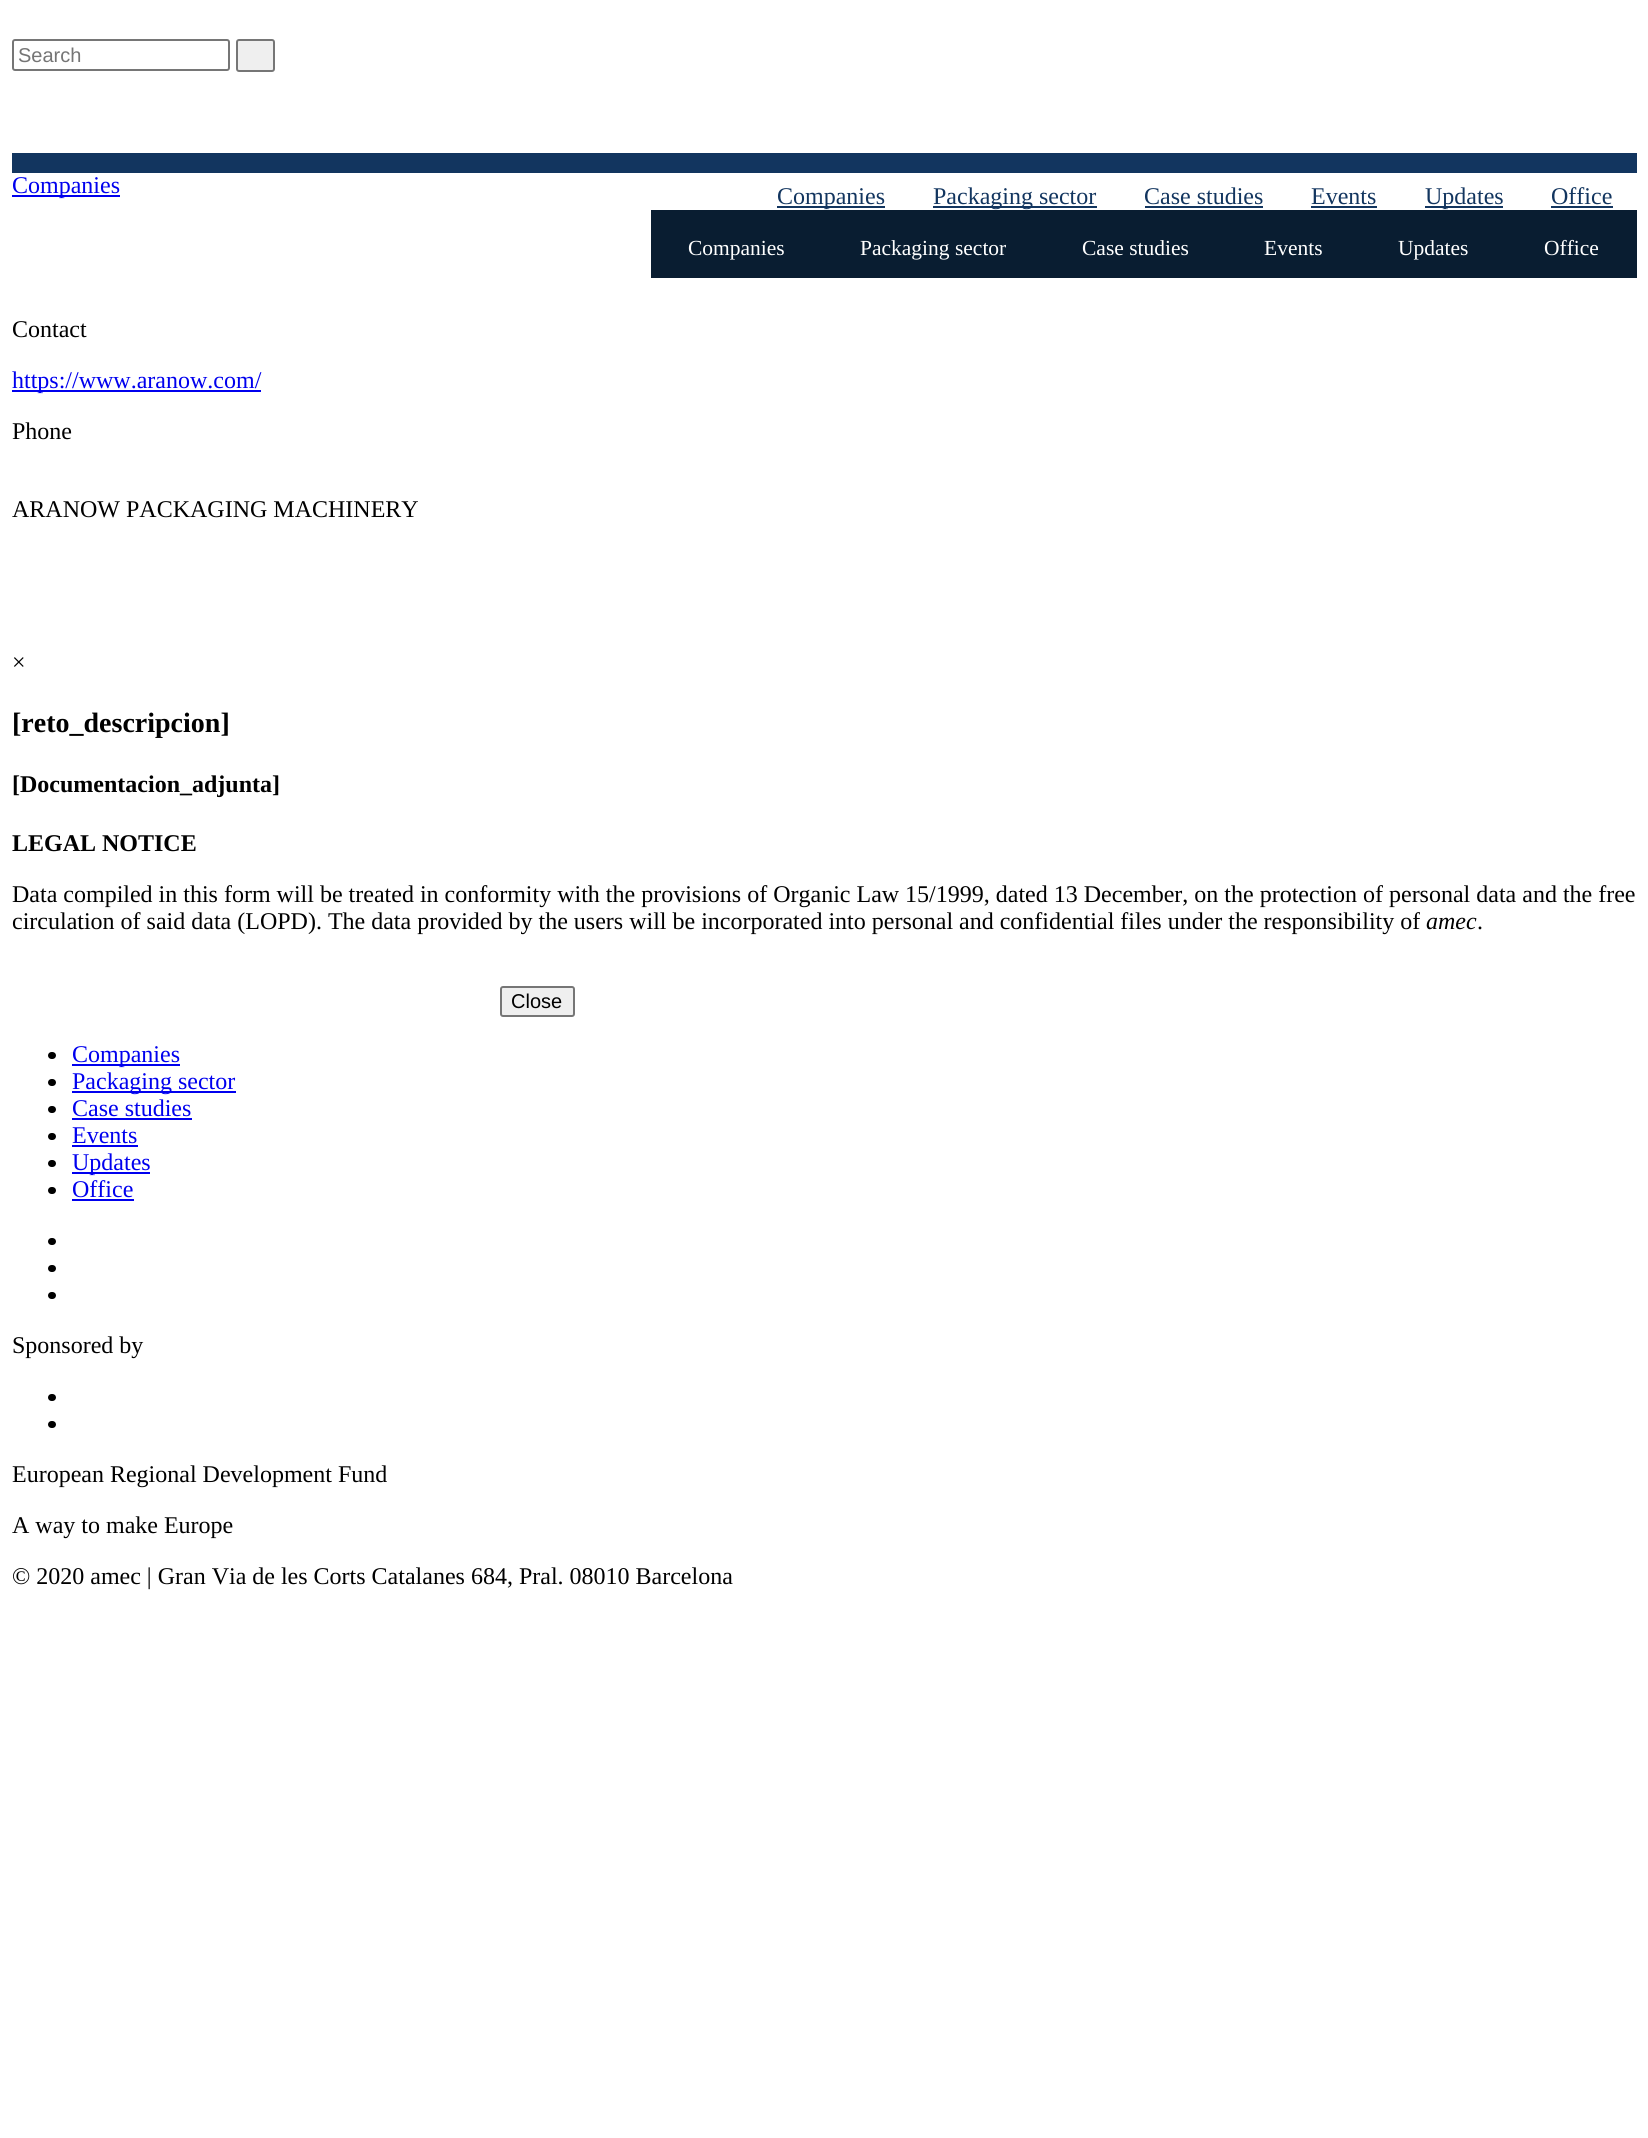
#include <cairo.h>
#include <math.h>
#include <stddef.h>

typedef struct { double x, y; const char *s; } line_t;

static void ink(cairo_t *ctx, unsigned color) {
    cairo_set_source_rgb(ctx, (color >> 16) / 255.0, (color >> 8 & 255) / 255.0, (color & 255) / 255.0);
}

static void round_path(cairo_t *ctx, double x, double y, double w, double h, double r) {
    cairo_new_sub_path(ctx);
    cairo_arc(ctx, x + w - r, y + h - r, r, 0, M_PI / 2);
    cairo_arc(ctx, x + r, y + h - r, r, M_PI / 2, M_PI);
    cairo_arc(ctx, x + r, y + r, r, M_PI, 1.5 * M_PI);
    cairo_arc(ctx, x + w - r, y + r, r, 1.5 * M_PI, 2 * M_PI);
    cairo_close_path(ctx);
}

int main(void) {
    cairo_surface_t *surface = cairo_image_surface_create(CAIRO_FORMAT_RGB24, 1648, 2138);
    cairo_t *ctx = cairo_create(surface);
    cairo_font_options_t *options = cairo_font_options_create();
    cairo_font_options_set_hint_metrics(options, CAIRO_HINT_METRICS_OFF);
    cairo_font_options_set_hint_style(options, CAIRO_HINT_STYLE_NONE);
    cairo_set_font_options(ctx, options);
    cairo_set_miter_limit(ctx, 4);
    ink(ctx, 0xFFFFFF);
    cairo_paint(ctx);
    round_path(ctx, 13, 40, 216, 30, 2);
    ink(ctx, 0x767676);
    cairo_stroke(ctx);
    cairo_select_font_face(ctx, "Liberation Sans", CAIRO_FONT_SLANT_NORMAL, CAIRO_FONT_WEIGHT_NORMAL);
    cairo_set_font_size(ctx, 20);
    ink(ctx, 0x757575);
    cairo_move_to(ctx, 18, 62);
    cairo_show_text(ctx, "Search");
    ink(ctx, 0xEFEFEF);
    round_path(ctx, 237, 40, 37, 31, 2);
    cairo_fill_preserve(ctx);
    ink(ctx, 0x767676);
    cairo_stroke(ctx);
    ink(ctx, 0x12355F);
    cairo_rectangle(ctx, 777, 206, 108, 2);
    cairo_fill(ctx);
    cairo_select_font_face(ctx, "Liberation Serif", CAIRO_FONT_SLANT_NORMAL, CAIRO_FONT_WEIGHT_NORMAL);
    cairo_set_font_size(ctx, 24);
    cairo_move_to(ctx, 777, 204);
    cairo_show_text(ctx, "Companies");
    cairo_rectangle(ctx, 933, 206, 164, 2);
    cairo_fill(ctx);
    cairo_move_to(ctx, 933, 204);
    cairo_show_text(ctx, "Packaging sector");
    cairo_move_to(ctx, 1144, 204);
    cairo_show_text(ctx, "Case studies");
    cairo_rectangle(ctx, 1145, 206, 118, 2);
    cairo_fill(ctx);
    cairo_move_to(ctx, 1311, 204);
    cairo_show_text(ctx, "Events");
    cairo_rectangle(ctx, 1311, 206, 66, 2);
    cairo_fill(ctx);
    cairo_rectangle(ctx, 1425, 206, 78, 2);
    cairo_fill(ctx);
    cairo_move_to(ctx, 1425, 204);
    cairo_show_text(ctx, "Updates");
    cairo_move_to(ctx, 1551, 204);
    cairo_show_text(ctx, "Office");
    cairo_rectangle(ctx, 1551, 206, 62, 2);
    cairo_fill(ctx);
    ink(ctx, 0x091D31);
    cairo_rectangle(ctx, 651, 210, 986, 68);
    cairo_fill(ctx);
    cairo_set_font_size(ctx, 21.5);
    ink(ctx, 0xFFFFFF);
    {
        static const line_t items[] = {
            {688, 255, "Companies"},
            {860, 255, "Packaging sector"},
            {1082, 255, "Case studies"},
            {1264, 255, "Events"},
            {1398, 255, "Updates"},
            {1544, 255, "Office"},
        };
        for (size_t i = 0; i < sizeof items / sizeof *items; i++) {
            cairo_move_to(ctx, items[i].x, items[i].y);
            cairo_show_text(ctx, items[i].s);
        }
    }
    ink(ctx, 0x12355F);
    cairo_rectangle(ctx, 12, 153, 1625, 20);
    cairo_fill(ctx);
    ink(ctx, 0x0000EE);
    cairo_rectangle(ctx, 12, 195, 108, 2);
    cairo_fill(ctx);
    cairo_set_font_size(ctx, 24);
    cairo_move_to(ctx, 12, 193);
    cairo_show_text(ctx, "Companies");
    ink(ctx, 0x000000);
    cairo_move_to(ctx, 12, 337);
    cairo_show_text(ctx, "Contact");
    ink(ctx, 0x0000EE);
    cairo_rectangle(ctx, 12, 390, 249, 2);
    cairo_fill(ctx);
    cairo_move_to(ctx, 12, 388);
    cairo_show_text(ctx, "https://www.aranow.com/");
    ink(ctx, 0x000000);
    {
        static const line_t items[] = {
            {12, 439, "Phone"},
            {12, 517, "ARANOW PACKAGING MACHINERY"},
            {12, 670, "×"},
        };
        for (size_t i = 0; i < sizeof items / sizeof *items; i++) {
            cairo_move_to(ctx, items[i].x, items[i].y);
            cairo_show_text(ctx, items[i].s);
        }
    }
    cairo_select_font_face(ctx, "Liberation Serif", CAIRO_FONT_SLANT_NORMAL, CAIRO_FONT_WEIGHT_BOLD);
    cairo_set_font_size(ctx, 28);
    cairo_move_to(ctx, 12, 732);
    cairo_show_text(ctx, "[reto_descripcion]");
    cairo_set_font_size(ctx, 24);
    cairo_move_to(ctx, 12, 792);
    cairo_show_text(ctx, "[Documentacion_adjunta]");
    cairo_move_to(ctx, 12, 851);
    cairo_show_text(ctx, "LEGAL NOTICE");
    cairo_select_font_face(ctx, "Liberation Serif", CAIRO_FONT_SLANT_NORMAL, CAIRO_FONT_WEIGHT_NORMAL);
    cairo_move_to(ctx, 12, 902);
    cairo_show_text(ctx, "Data compiled in this form will be treated in conformity with the provisions of Organic Law 15/1999, dated 13 December, on the protection of personal data and the free");
    cairo_move_to(ctx, 12, 929);
    cairo_show_text(ctx, "circulation of said data (LOPD). The data provided by the users will be incorporated into personal and confidential files under the responsibility of");
    cairo_select_font_face(ctx, "Liberation Serif", CAIRO_FONT_SLANT_ITALIC, CAIRO_FONT_WEIGHT_NORMAL);
    cairo_move_to(ctx, 1426, 929);
    cairo_show_text(ctx, "amec");
    cairo_select_font_face(ctx, "Liberation Serif", CAIRO_FONT_SLANT_NORMAL, CAIRO_FONT_WEIGHT_NORMAL);
    cairo_move_to(ctx, 1477, 929);
    cairo_show_text(ctx, ".");
    ink(ctx, 0xEFEFEF);
    round_path(ctx, 501, 987, 73, 29, 2);
    cairo_fill_preserve(ctx);
    ink(ctx, 0x767676);
    cairo_stroke(ctx);
    cairo_select_font_face(ctx, "Liberation Sans", CAIRO_FONT_SLANT_NORMAL, CAIRO_FONT_WEIGHT_NORMAL);
    cairo_set_font_size(ctx, 20);
    ink(ctx, 0x000000);
    cairo_move_to(ctx, 511, 1008);
    cairo_show_text(ctx, "Close");
    round_path(ctx, 48, 1052, 8, 7, 3.5);
    cairo_fill(ctx);
    ink(ctx, 0x0000EE);
    cairo_rectangle(ctx, 72, 1064, 108, 2);
    cairo_fill(ctx);
    cairo_select_font_face(ctx, "Liberation Serif", CAIRO_FONT_SLANT_NORMAL, CAIRO_FONT_WEIGHT_NORMAL);
    cairo_set_font_size(ctx, 24);
    cairo_move_to(ctx, 72, 1062);
    cairo_show_text(ctx, "Companies");
    ink(ctx, 0x000000);
    round_path(ctx, 48, 1079, 8, 7, 3.5);
    cairo_fill(ctx);
    ink(ctx, 0x0000EE);
    cairo_rectangle(ctx, 72, 1091, 164, 2);
    cairo_fill(ctx);
    cairo_move_to(ctx, 72, 1089);
    cairo_show_text(ctx, "Packaging sector");
    ink(ctx, 0x000000);
    round_path(ctx, 48, 1106, 8, 7, 3.5);
    cairo_fill(ctx);
    ink(ctx, 0x0000EE);
    cairo_move_to(ctx, 72, 1116);
    cairo_show_text(ctx, "Case studies");
    cairo_rectangle(ctx, 72, 1118, 120, 2);
    cairo_fill(ctx);
    ink(ctx, 0x000000);
    round_path(ctx, 48, 1133, 8, 7, 3.5);
    cairo_fill(ctx);
    ink(ctx, 0x0000EE);
    cairo_move_to(ctx, 72, 1143);
    cairo_show_text(ctx, "Events");
    cairo_rectangle(ctx, 72, 1145, 66, 2);
    cairo_fill(ctx);
    ink(ctx, 0x000000);
    round_path(ctx, 48, 1160, 8, 7, 3.5);
    cairo_fill(ctx);
    ink(ctx, 0x0000EE);
    cairo_rectangle(ctx, 72, 1172, 78, 2);
    cairo_fill(ctx);
    cairo_move_to(ctx, 72, 1170);
    cairo_show_text(ctx, "Updates");
    ink(ctx, 0x000000);
    round_path(ctx, 48, 1187, 8, 7, 3.5);
    cairo_fill(ctx);
    ink(ctx, 0x0000EE);
    cairo_move_to(ctx, 72, 1197);
    cairo_show_text(ctx, "Office");
    cairo_rectangle(ctx, 72, 1199, 62, 2);
    cairo_fill(ctx);
    ink(ctx, 0x000000);
    round_path(ctx, 48, 1238, 8, 7, 3.5);
    cairo_fill(ctx);
    round_path(ctx, 48, 1265, 8, 7, 3.5);
    cairo_fill(ctx);
    round_path(ctx, 48, 1292, 8, 7, 3.5);
    cairo_fill(ctx);
    cairo_move_to(ctx, 12, 1353);
    cairo_show_text(ctx, "Sponsored by");
    round_path(ctx, 48, 1394, 8, 7, 3.5);
    cairo_fill(ctx);
    round_path(ctx, 48, 1421, 8, 7, 3.5);
    cairo_fill(ctx);
    {
        static const line_t items[] = {
            {12, 1482, "European Regional Development Fund"},
            {12, 1533, "A way to make Europe"},
            {12, 1584, "© 2020 amec | Gran Via de les Corts Catalanes 684, Pral. 08010 Barcelona"},
        };
        for (size_t i = 0; i < sizeof items / sizeof *items; i++) {
            cairo_move_to(ctx, items[i].x, items[i].y);
            cairo_show_text(ctx, items[i].s);
        }
    }
    cairo_surface_write_to_png(surface, "image.png");
    cairo_font_options_destroy(options);
    cairo_destroy(ctx);
    cairo_surface_destroy(surface);
    return 0;
}
